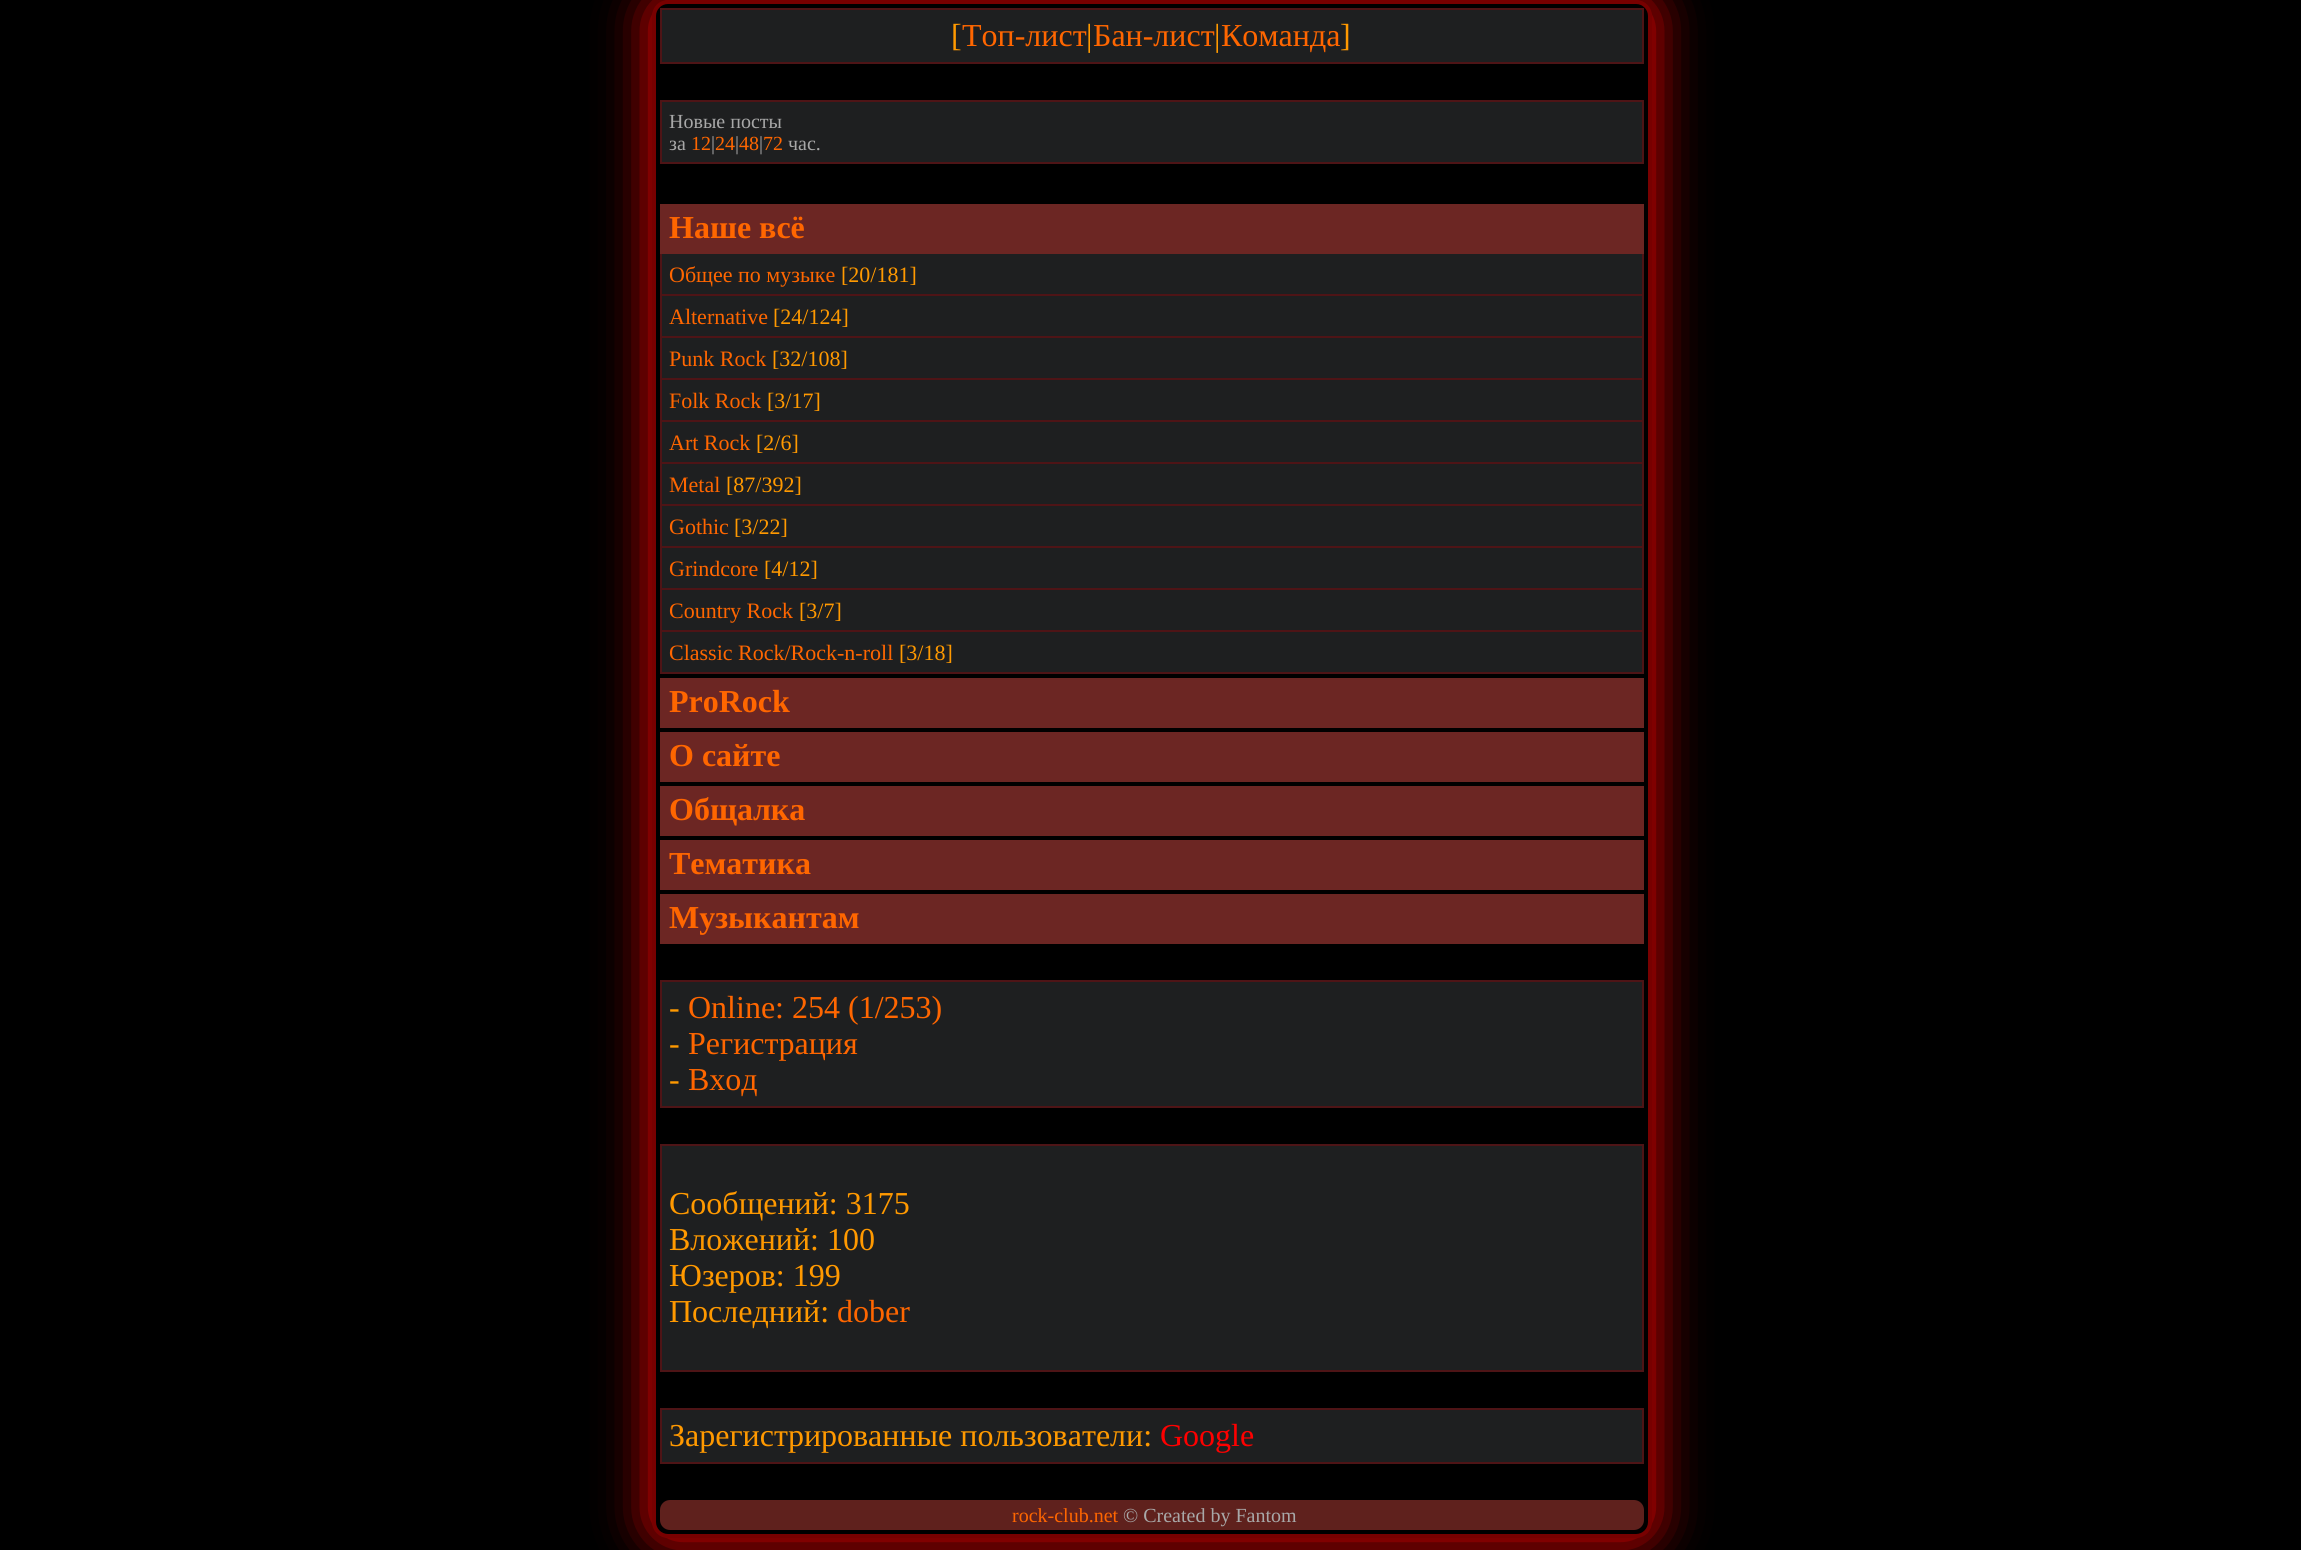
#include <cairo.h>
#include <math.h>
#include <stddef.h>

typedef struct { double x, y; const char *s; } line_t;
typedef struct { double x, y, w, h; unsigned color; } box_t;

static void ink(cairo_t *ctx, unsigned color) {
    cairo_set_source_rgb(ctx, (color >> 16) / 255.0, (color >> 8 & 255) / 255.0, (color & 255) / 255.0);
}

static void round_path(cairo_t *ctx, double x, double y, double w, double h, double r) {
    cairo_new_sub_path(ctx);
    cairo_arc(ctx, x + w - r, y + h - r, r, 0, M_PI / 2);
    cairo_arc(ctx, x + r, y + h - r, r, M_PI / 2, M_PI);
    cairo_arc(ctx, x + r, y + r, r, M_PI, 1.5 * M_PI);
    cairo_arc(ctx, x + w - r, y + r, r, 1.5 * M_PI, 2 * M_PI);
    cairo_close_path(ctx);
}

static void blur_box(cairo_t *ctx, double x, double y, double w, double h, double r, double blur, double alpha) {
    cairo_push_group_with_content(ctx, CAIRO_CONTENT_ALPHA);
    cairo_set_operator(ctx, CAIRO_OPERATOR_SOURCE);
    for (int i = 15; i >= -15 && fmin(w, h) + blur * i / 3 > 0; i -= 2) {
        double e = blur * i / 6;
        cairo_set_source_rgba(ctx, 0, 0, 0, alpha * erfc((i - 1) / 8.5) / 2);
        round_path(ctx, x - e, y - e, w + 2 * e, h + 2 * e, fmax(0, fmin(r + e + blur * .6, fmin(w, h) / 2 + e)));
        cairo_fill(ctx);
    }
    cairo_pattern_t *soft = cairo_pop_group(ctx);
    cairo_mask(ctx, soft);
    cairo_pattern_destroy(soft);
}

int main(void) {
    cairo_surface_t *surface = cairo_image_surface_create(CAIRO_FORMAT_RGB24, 2301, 1550);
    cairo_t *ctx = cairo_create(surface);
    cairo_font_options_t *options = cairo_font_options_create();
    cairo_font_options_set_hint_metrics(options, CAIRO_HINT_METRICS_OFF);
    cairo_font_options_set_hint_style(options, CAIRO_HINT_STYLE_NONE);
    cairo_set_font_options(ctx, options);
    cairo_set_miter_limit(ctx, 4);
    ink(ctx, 0x000000);
    cairo_paint(ctx);
    ink(ctx, 0xFF0000);
    blur_box(ctx, 652, 0, 1000, 1538, 16, 25, 1);
    ink(ctx, 0x000000);
    round_path(ctx, 654, 2, 996, 1534, 14);
    cairo_fill_preserve(ctx);
    ink(ctx, 0x780000);
    cairo_set_line_width(ctx, 4);
    cairo_stroke(ctx);
    ink(ctx, 0x1E1F20);
    cairo_rectangle(ctx, 661, 9, 982, 54);
    cairo_fill_preserve(ctx);
    ink(ctx, 0x4E1416);
    cairo_set_line_width(ctx, 2);
    cairo_stroke(ctx);
    cairo_select_font_face(ctx, "Liberation Serif", CAIRO_FONT_SLANT_NORMAL, CAIRO_FONT_WEIGHT_NORMAL);
    cairo_set_font_size(ctx, 32);
    ink(ctx, 0xFF9900);
    cairo_move_to(ctx, 951, 46);
    cairo_show_text(ctx, "[");
    ink(ctx, 0xFF6600);
    cairo_move_to(ctx, 962, 46);
    cairo_show_text(ctx, "Топ-лист");
    ink(ctx, 0xFF9900);
    cairo_move_to(ctx, 1086, 46);
    cairo_show_text(ctx, "|");
    ink(ctx, 0xFF6600);
    cairo_move_to(ctx, 1093, 46);
    cairo_show_text(ctx, "Бан-лист");
    ink(ctx, 0xFF9900);
    cairo_move_to(ctx, 1214, 46);
    cairo_show_text(ctx, "|");
    ink(ctx, 0xFF6600);
    cairo_move_to(ctx, 1221, 46);
    cairo_show_text(ctx, "Команда");
    ink(ctx, 0xFF9900);
    cairo_move_to(ctx, 1340, 46);
    cairo_show_text(ctx, "]");
    ink(ctx, 0x1E1F20);
    cairo_rectangle(ctx, 661, 101, 982, 62);
    cairo_fill_preserve(ctx);
    ink(ctx, 0x4E1416);
    cairo_stroke(ctx);
    cairo_set_font_size(ctx, 20);
    ink(ctx, 0xA8A8A8);
    cairo_move_to(ctx, 669, 128);
    cairo_show_text(ctx, "Новые посты");
    cairo_move_to(ctx, 669, 150);
    cairo_show_text(ctx, "за");
    ink(ctx, 0xFF6600);
    cairo_move_to(ctx, 691, 150);
    cairo_show_text(ctx, "12");
    ink(ctx, 0xA8A8A8);
    cairo_move_to(ctx, 711, 150);
    cairo_show_text(ctx, "|");
    ink(ctx, 0xFF6600);
    cairo_move_to(ctx, 715, 150);
    cairo_show_text(ctx, "24");
    ink(ctx, 0xA8A8A8);
    cairo_move_to(ctx, 735, 150);
    cairo_show_text(ctx, "|");
    ink(ctx, 0xFF6600);
    cairo_move_to(ctx, 739, 150);
    cairo_show_text(ctx, "48");
    ink(ctx, 0xA8A8A8);
    cairo_move_to(ctx, 759, 150);
    cairo_show_text(ctx, "|");
    ink(ctx, 0xFF6600);
    cairo_move_to(ctx, 763, 150);
    cairo_show_text(ctx, "72");
    ink(ctx, 0xA8A8A8);
    cairo_move_to(ctx, 788, 150);
    cairo_show_text(ctx, "час.");
    ink(ctx, 0x6C2623);
    cairo_rectangle(ctx, 660, 204, 984, 50);
    cairo_fill(ctx);
    cairo_select_font_face(ctx, "Liberation Serif", CAIRO_FONT_SLANT_NORMAL, CAIRO_FONT_WEIGHT_BOLD);
    cairo_set_font_size(ctx, 32);
    ink(ctx, 0xFF6600);
    cairo_move_to(ctx, 669, 238);
    cairo_show_text(ctx, "Наше всё");
    {
        static const box_t items[] = {
            {662, 254, 980, 40, 0x1E1F20},
            {1642, 254, 2, 420, 0x4E1416},
            {660, 294, 984, 2, 0x4E1416},
            {660, 254, 2, 42, 0x4E1416},
        };
        for (size_t i = 0; i < sizeof items / sizeof *items; i++) {
            ink(ctx, items[i].color);
            cairo_rectangle(ctx, items[i].x, items[i].y, items[i].w, items[i].h);
            cairo_fill(ctx);
        }
    }
    cairo_select_font_face(ctx, "Liberation Serif", CAIRO_FONT_SLANT_NORMAL, CAIRO_FONT_WEIGHT_NORMAL);
    cairo_set_font_size(ctx, 22);
    ink(ctx, 0xFF6600);
    cairo_move_to(ctx, 669, 282);
    cairo_show_text(ctx, "Общее по музыке");
    ink(ctx, 0xFF9900);
    cairo_move_to(ctx, 841, 282);
    cairo_show_text(ctx, "[20/181]");
    {
        static const box_t items[] = {
            {662, 296, 980, 40, 0x1E1F20},
            {660, 336, 984, 2, 0x4E1416},
            {660, 296, 2, 42, 0x4E1416},
        };
        for (size_t i = 0; i < sizeof items / sizeof *items; i++) {
            ink(ctx, items[i].color);
            cairo_rectangle(ctx, items[i].x, items[i].y, items[i].w, items[i].h);
            cairo_fill(ctx);
        }
    }
    ink(ctx, 0xFF6600);
    cairo_move_to(ctx, 669, 324);
    cairo_show_text(ctx, "Alternative");
    ink(ctx, 0xFF9900);
    cairo_move_to(ctx, 773, 324);
    cairo_show_text(ctx, "[24/124]");
    {
        static const box_t items[] = {
            {662, 338, 980, 40, 0x1E1F20},
            {660, 378, 984, 2, 0x4E1416},
            {660, 338, 2, 42, 0x4E1416},
        };
        for (size_t i = 0; i < sizeof items / sizeof *items; i++) {
            ink(ctx, items[i].color);
            cairo_rectangle(ctx, items[i].x, items[i].y, items[i].w, items[i].h);
            cairo_fill(ctx);
        }
    }
    ink(ctx, 0xFF6600);
    cairo_move_to(ctx, 669, 366);
    cairo_show_text(ctx, "Punk Rock");
    ink(ctx, 0xFF9900);
    cairo_move_to(ctx, 772, 366);
    cairo_show_text(ctx, "[32/108]");
    {
        static const box_t items[] = {
            {662, 380, 980, 40, 0x1E1F20},
            {660, 420, 984, 2, 0x4E1416},
            {660, 380, 2, 42, 0x4E1416},
        };
        for (size_t i = 0; i < sizeof items / sizeof *items; i++) {
            ink(ctx, items[i].color);
            cairo_rectangle(ctx, items[i].x, items[i].y, items[i].w, items[i].h);
            cairo_fill(ctx);
        }
    }
    ink(ctx, 0xFF6600);
    cairo_move_to(ctx, 669, 408);
    cairo_show_text(ctx, "Folk Rock");
    ink(ctx, 0xFF9900);
    cairo_move_to(ctx, 767, 408);
    cairo_show_text(ctx, "[3/17]");
    {
        static const box_t items[] = {
            {662, 422, 980, 40, 0x1E1F20},
            {660, 462, 984, 2, 0x4E1416},
            {660, 422, 2, 42, 0x4E1416},
        };
        for (size_t i = 0; i < sizeof items / sizeof *items; i++) {
            ink(ctx, items[i].color);
            cairo_rectangle(ctx, items[i].x, items[i].y, items[i].w, items[i].h);
            cairo_fill(ctx);
        }
    }
    ink(ctx, 0xFF6600);
    cairo_move_to(ctx, 669, 450);
    cairo_show_text(ctx, "Art Rock");
    ink(ctx, 0xFF9900);
    cairo_move_to(ctx, 756, 450);
    cairo_show_text(ctx, "[2/6]");
    {
        static const box_t items[] = {
            {662, 464, 980, 40, 0x1E1F20},
            {660, 504, 984, 2, 0x4E1416},
            {660, 464, 2, 42, 0x4E1416},
        };
        for (size_t i = 0; i < sizeof items / sizeof *items; i++) {
            ink(ctx, items[i].color);
            cairo_rectangle(ctx, items[i].x, items[i].y, items[i].w, items[i].h);
            cairo_fill(ctx);
        }
    }
    ink(ctx, 0xFF6600);
    cairo_move_to(ctx, 669, 492);
    cairo_show_text(ctx, "Metal");
    ink(ctx, 0xFF9900);
    cairo_move_to(ctx, 726, 492);
    cairo_show_text(ctx, "[87/392]");
    {
        static const box_t items[] = {
            {662, 506, 980, 40, 0x1E1F20},
            {660, 546, 984, 2, 0x4E1416},
            {660, 506, 2, 42, 0x4E1416},
        };
        for (size_t i = 0; i < sizeof items / sizeof *items; i++) {
            ink(ctx, items[i].color);
            cairo_rectangle(ctx, items[i].x, items[i].y, items[i].w, items[i].h);
            cairo_fill(ctx);
        }
    }
    ink(ctx, 0xFF6600);
    cairo_move_to(ctx, 669, 534);
    cairo_show_text(ctx, "Gothic");
    ink(ctx, 0xFF9900);
    cairo_move_to(ctx, 734, 534);
    cairo_show_text(ctx, "[3/22]");
    {
        static const box_t items[] = {
            {662, 548, 980, 40, 0x1E1F20},
            {660, 588, 984, 2, 0x4E1416},
            {660, 548, 2, 42, 0x4E1416},
        };
        for (size_t i = 0; i < sizeof items / sizeof *items; i++) {
            ink(ctx, items[i].color);
            cairo_rectangle(ctx, items[i].x, items[i].y, items[i].w, items[i].h);
            cairo_fill(ctx);
        }
    }
    ink(ctx, 0xFF6600);
    cairo_move_to(ctx, 669, 576);
    cairo_show_text(ctx, "Grindcore");
    ink(ctx, 0xFF9900);
    cairo_move_to(ctx, 764, 576);
    cairo_show_text(ctx, "[4/12]");
    {
        static const box_t items[] = {
            {662, 590, 980, 40, 0x1E1F20},
            {660, 630, 984, 2, 0x4E1416},
            {660, 590, 2, 42, 0x4E1416},
        };
        for (size_t i = 0; i < sizeof items / sizeof *items; i++) {
            ink(ctx, items[i].color);
            cairo_rectangle(ctx, items[i].x, items[i].y, items[i].w, items[i].h);
            cairo_fill(ctx);
        }
    }
    ink(ctx, 0xFF6600);
    cairo_move_to(ctx, 669, 618);
    cairo_show_text(ctx, "Country Rock");
    ink(ctx, 0xFF9900);
    cairo_move_to(ctx, 799, 618);
    cairo_show_text(ctx, "[3/7]");
    {
        static const box_t items[] = {
            {662, 632, 980, 40, 0x1E1F20},
            {660, 672, 984, 2, 0x4E1416},
            {660, 632, 2, 42, 0x4E1416},
        };
        for (size_t i = 0; i < sizeof items / sizeof *items; i++) {
            ink(ctx, items[i].color);
            cairo_rectangle(ctx, items[i].x, items[i].y, items[i].w, items[i].h);
            cairo_fill(ctx);
        }
    }
    ink(ctx, 0xFF6600);
    cairo_move_to(ctx, 669, 660);
    cairo_show_text(ctx, "Classic Rock/Rock-n-roll");
    ink(ctx, 0xFF9900);
    cairo_move_to(ctx, 899, 660);
    cairo_show_text(ctx, "[3/18]");
    ink(ctx, 0x6C2623);
    cairo_rectangle(ctx, 660, 678, 984, 50);
    cairo_fill(ctx);
    cairo_select_font_face(ctx, "Liberation Serif", CAIRO_FONT_SLANT_NORMAL, CAIRO_FONT_WEIGHT_BOLD);
    cairo_set_font_size(ctx, 32);
    ink(ctx, 0xFF6600);
    cairo_move_to(ctx, 669, 712);
    cairo_show_text(ctx, "ProRock");
    ink(ctx, 0x6C2623);
    cairo_rectangle(ctx, 660, 732, 984, 50);
    cairo_fill(ctx);
    ink(ctx, 0xFF6600);
    cairo_move_to(ctx, 669, 766);
    cairo_show_text(ctx, "О сайте");
    ink(ctx, 0x6C2623);
    cairo_rectangle(ctx, 660, 786, 984, 50);
    cairo_fill(ctx);
    ink(ctx, 0xFF6600);
    cairo_move_to(ctx, 669, 820);
    cairo_show_text(ctx, "Общалка");
    ink(ctx, 0x6C2623);
    cairo_rectangle(ctx, 660, 840, 984, 50);
    cairo_fill(ctx);
    ink(ctx, 0xFF6600);
    cairo_move_to(ctx, 669, 874);
    cairo_show_text(ctx, "Тематика");
    ink(ctx, 0x6C2623);
    cairo_rectangle(ctx, 660, 894, 984, 50);
    cairo_fill(ctx);
    ink(ctx, 0xFF6600);
    cairo_move_to(ctx, 669, 928);
    cairo_show_text(ctx, "Музыкантам");
    ink(ctx, 0x1E1F20);
    cairo_rectangle(ctx, 661, 981, 982, 126);
    cairo_fill_preserve(ctx);
    ink(ctx, 0x4E1416);
    cairo_stroke(ctx);
    cairo_select_font_face(ctx, "Liberation Serif", CAIRO_FONT_SLANT_NORMAL, CAIRO_FONT_WEIGHT_NORMAL);
    ink(ctx, 0xFF9900);
    cairo_move_to(ctx, 669, 1018);
    cairo_show_text(ctx, "-");
    ink(ctx, 0xFF6600);
    cairo_move_to(ctx, 688, 1018);
    cairo_show_text(ctx, "Online: 254 (1/253)");
    ink(ctx, 0xFF9900);
    cairo_move_to(ctx, 669, 1054);
    cairo_show_text(ctx, "-");
    ink(ctx, 0xFF6600);
    cairo_move_to(ctx, 688, 1054);
    cairo_show_text(ctx, "Регистрация");
    ink(ctx, 0xFF9900);
    cairo_move_to(ctx, 669, 1090);
    cairo_show_text(ctx, "-");
    ink(ctx, 0xFF6600);
    cairo_move_to(ctx, 688, 1090);
    cairo_show_text(ctx, "Вход");
    ink(ctx, 0x1E1F20);
    cairo_rectangle(ctx, 661, 1145, 982, 226);
    cairo_fill_preserve(ctx);
    ink(ctx, 0x4E1416);
    cairo_stroke(ctx);
    ink(ctx, 0xFF9900);
    {
        static const line_t items[] = {
            {669, 1214, "Сообщений: 3175"},
            {669, 1250, "Вложений: 100"},
            {669, 1286, "Юзеров: 199"},
            {669, 1322, "Последний:"},
        };
        for (size_t i = 0; i < sizeof items / sizeof *items; i++) {
            cairo_move_to(ctx, items[i].x, items[i].y);
            cairo_show_text(ctx, items[i].s);
        }
    }
    ink(ctx, 0xFF6600);
    cairo_move_to(ctx, 837, 1322);
    cairo_show_text(ctx, "dober");
    ink(ctx, 0x1E1F20);
    cairo_rectangle(ctx, 661, 1409, 982, 54);
    cairo_fill_preserve(ctx);
    ink(ctx, 0x4E1416);
    cairo_stroke(ctx);
    ink(ctx, 0xFF9900);
    cairo_move_to(ctx, 669, 1446);
    cairo_show_text(ctx, "Зарегистрированные пользователи:");
    ink(ctx, 0xFF0000);
    cairo_move_to(ctx, 1160, 1446);
    cairo_show_text(ctx, "Google");
    ink(ctx, 0x5F211D);
    round_path(ctx, 660, 1500, 984, 30, 10);
    cairo_fill(ctx);
    cairo_set_font_size(ctx, 20);
    ink(ctx, 0xFF6600);
    cairo_move_to(ctx, 1012, 1522);
    cairo_show_text(ctx, "rock-club.net");
    ink(ctx, 0xA8A8A8);
    cairo_move_to(ctx, 1123, 1522);
    cairo_show_text(ctx, "© Created by Fantom");
    cairo_surface_write_to_png(surface, "image.png");
    cairo_font_options_destroy(options);
    cairo_destroy(ctx);
    cairo_surface_destroy(surface);
    return 0;
}
